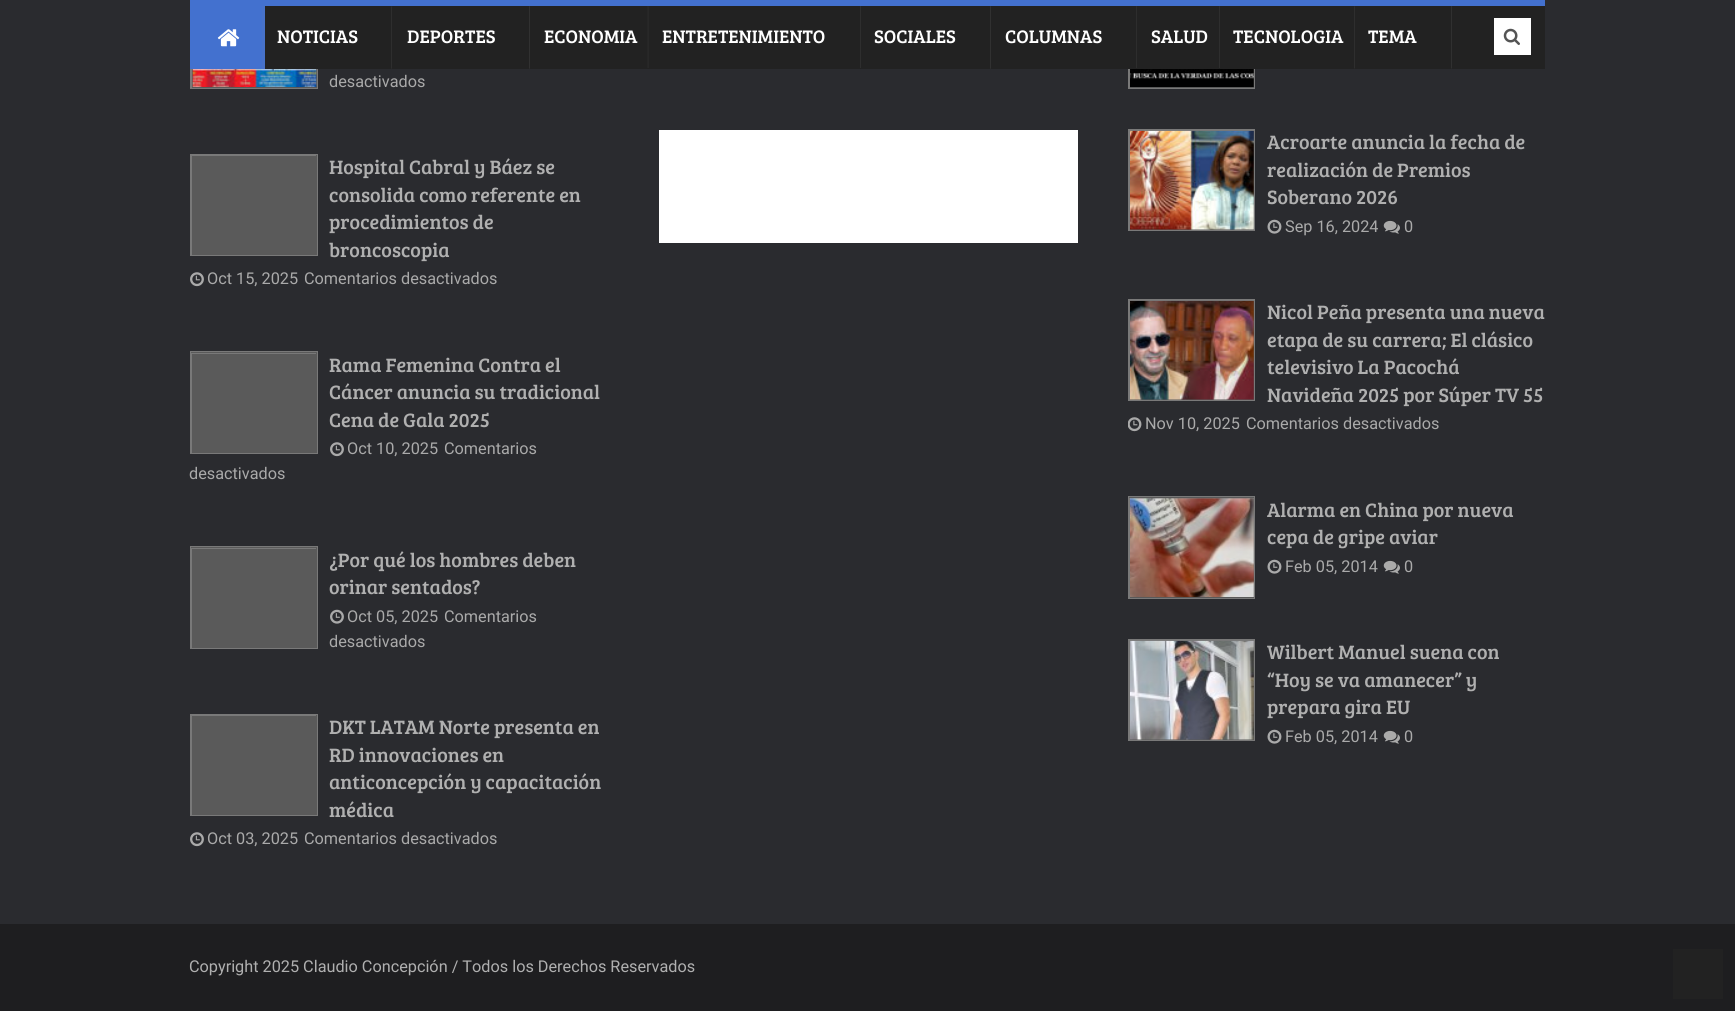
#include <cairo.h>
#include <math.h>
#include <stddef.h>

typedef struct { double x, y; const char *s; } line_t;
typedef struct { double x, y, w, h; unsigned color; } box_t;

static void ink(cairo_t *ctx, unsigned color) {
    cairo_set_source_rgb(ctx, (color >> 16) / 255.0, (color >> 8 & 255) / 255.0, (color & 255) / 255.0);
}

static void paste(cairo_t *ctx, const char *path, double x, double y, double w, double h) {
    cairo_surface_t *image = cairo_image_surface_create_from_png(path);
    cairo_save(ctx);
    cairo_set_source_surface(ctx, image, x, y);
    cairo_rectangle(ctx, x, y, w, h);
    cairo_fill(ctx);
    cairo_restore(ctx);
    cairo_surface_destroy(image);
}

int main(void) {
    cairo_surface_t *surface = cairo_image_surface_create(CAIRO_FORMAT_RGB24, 1735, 1011);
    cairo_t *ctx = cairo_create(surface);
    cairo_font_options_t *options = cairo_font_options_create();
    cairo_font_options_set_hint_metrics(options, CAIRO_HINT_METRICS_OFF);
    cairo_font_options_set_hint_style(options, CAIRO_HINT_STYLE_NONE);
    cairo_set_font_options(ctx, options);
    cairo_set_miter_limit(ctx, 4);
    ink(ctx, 0x2A2B2F);
    cairo_paint(ctx);
    ink(ctx, 0x5A5A5A);
    cairo_rectangle(ctx, 192, 69, 125, 19);
    cairo_fill(ctx);
    cairo_rectangle(ctx, 190.5, -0.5, 127, 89);
    ink(ctx, 0x797979);
    cairo_set_line_width(ctx, 1);
    cairo_stroke(ctx);
    cairo_save(ctx);
    cairo_rectangle(ctx, 191, 0, 125, 88);
    cairo_clip(ctx);
    cairo_rectangle(ctx, 191.5, -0.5, 127, 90);
    cairo_stroke(ctx);
    cairo_restore(ctx);
    ink(ctx, 0x5A5A5A);
    cairo_rectangle(ctx, 1130, 69, 124, 19);
    cairo_fill(ctx);
    cairo_rectangle(ctx, 1128.5, -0.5, 126, 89);
    ink(ctx, 0x797979);
    cairo_stroke(ctx);
    cairo_save(ctx);
    cairo_rectangle(ctx, 1129, 0, 125, 88);
    cairo_clip(ctx);
    cairo_rectangle(ctx, 1129.5, -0.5, 126, 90);
    cairo_stroke(ctx);
    cairo_restore(ctx);
    {
        static const box_t items[] = {
            {265, 6, 1280, 63, 0x222222},
            {190, 0, 1355, 6, 0x4371CF},
            {190, 6, 72, 63, 0x4371CF},
            {262, 6, 3, 63, 0x4772C9},
        };
        for (size_t i = 0; i < sizeof items / sizeof *items; i++) {
            ink(ctx, items[i].color);
            cairo_rectangle(ctx, items[i].x, items[i].y, items[i].w, items[i].h);
            cairo_fill(ctx);
        }
    }
    paste(ctx, "media/1.png", 217, 29, 23, 18);
    ink(ctx, 0x292929);
    cairo_rectangle(ctx, 391, 6, 1, 63);
    cairo_fill(ctx);
    ink(ctx, 0x2E2E2E);
    cairo_rectangle(ctx, 391, 7, 1, 61);
    cairo_fill(ctx);
    cairo_select_font_face(ctx, "Bree Serif", CAIRO_FONT_SLANT_NORMAL, CAIRO_FONT_WEIGHT_NORMAL);
    cairo_set_font_size(ctx, 18.75);
    ink(ctx, 0xFFFFFF);
    cairo_move_to(ctx, 277, 43);
    cairo_show_text(ctx, "NOTICIAS");
    paste(ctx, "media/2.png", 529, 6, 1, 63);
    paste(ctx, "media/3.png", 529, 6, 1, 63);
    cairo_move_to(ctx, 407, 43);
    cairo_show_text(ctx, "DEPORTES");
    ink(ctx, 0x262626);
    cairo_rectangle(ctx, 647, 6, 1, 62);
    cairo_fill(ctx);
    paste(ctx, "media/4.png", 648, 6, 1, 62);
    ink(ctx, 0xFFFFFF);
    cairo_move_to(ctx, 544, 43);
    cairo_show_text(ctx, "ECONOMIA");
    ink(ctx, 0x2E2E2E);
    cairo_rectangle(ctx, 860, 6, 1, 62);
    cairo_fill(ctx);
    ink(ctx, 0xFFFFFF);
    cairo_move_to(ctx, 662, 43);
    cairo_show_text(ctx, "ENTRETENIMIENTO");
    paste(ctx, "media/5.png", 990, 6, 1, 63);
    paste(ctx, "media/6.png", 990, 6, 1, 63);
    cairo_move_to(ctx, 874, 43);
    cairo_show_text(ctx, "SOCIALES");
    ink(ctx, 0x272727);
    cairo_rectangle(ctx, 1136, 6, 1, 62);
    cairo_fill(ctx);
    paste(ctx, "media/7.png", 1136, 6, 1, 62);
    ink(ctx, 0xFFFFFF);
    cairo_move_to(ctx, 1005, 43);
    cairo_show_text(ctx, "COLUMNAS");
    ink(ctx, 0x282828);
    cairo_rectangle(ctx, 1219, 6, 1, 62);
    cairo_fill(ctx);
    paste(ctx, "media/8.png", 1219, 6, 1, 62);
    ink(ctx, 0xFFFFFF);
    cairo_move_to(ctx, 1151, 43);
    cairo_show_text(ctx, "SALUD");
    paste(ctx, "media/9.png", 1354, 6, 1, 63);
    ink(ctx, 0x2E2E2E);
    cairo_rectangle(ctx, 1354, 7, 1, 61);
    cairo_fill(ctx);
    ink(ctx, 0xFFFFFF);
    cairo_move_to(ctx, 1233, 43);
    cairo_show_text(ctx, "TECNOLOGIA");
    paste(ctx, "media/10.png", 1451, 6, 1, 62);
    cairo_set_source_rgba(ctx, 1, 1, 1, 0.03);
    cairo_rectangle(ctx, 1451, 6, 1, 63);
    cairo_fill(ctx);
    ink(ctx, 0xFFFFFF);
    cairo_move_to(ctx, 1368, 43);
    cairo_show_text(ctx, "TEMA");
    cairo_rectangle(ctx, 1494, 18, 37, 37);
    cairo_fill(ctx);
    paste(ctx, "media/11.png", 1503, 28, 17, 17);
    paste(ctx, "media/12.png", 192, 69, 125, 18);
    cairo_select_font_face(ctx, "Roboto", CAIRO_FONT_SLANT_NORMAL, CAIRO_FONT_WEIGHT_NORMAL);
    cairo_set_font_size(ctx, 16.25);
    ink(ctx, 0xAAAAAA);
    cairo_move_to(ctx, 329, 87);
    cairo_show_text(ctx, "desactivados");
    ink(ctx, 0x5A5A5A);
    cairo_rectangle(ctx, 192, 155, 125, 100);
    cairo_fill(ctx);
    cairo_rectangle(ctx, 190.5, 154.5, 127, 101);
    ink(ctx, 0x797979);
    cairo_stroke(ctx);
    cairo_save(ctx);
    cairo_rectangle(ctx, 191, 155, 125, 100);
    cairo_clip(ctx);
    cairo_rectangle(ctx, 191.5, 155.5, 127, 102);
    cairo_stroke(ctx);
    cairo_restore(ctx);
    cairo_select_font_face(ctx, "Bree Serif", CAIRO_FONT_SLANT_NORMAL, CAIRO_FONT_WEIGHT_NORMAL);
    cairo_set_font_size(ctx, 20);
    ink(ctx, 0xB0B0B0);
    {
        static const line_t items[] = {
            {329, 174, "Hospital Cabral y Báez se"},
            {329, 202, "consolida como referente en"},
            {329, 229, "procedimientos de"},
            {329, 257, "broncoscopia"},
        };
        for (size_t i = 0; i < sizeof items / sizeof *items; i++) {
            cairo_move_to(ctx, items[i].x, items[i].y);
            cairo_show_text(ctx, items[i].s);
        }
    }
    paste(ctx, "media/13.png", 190, 272, 14, 15);
    cairo_select_font_face(ctx, "Roboto", CAIRO_FONT_SLANT_NORMAL, CAIRO_FONT_WEIGHT_NORMAL);
    cairo_set_font_size(ctx, 16.25);
    ink(ctx, 0xAAAAAA);
    cairo_move_to(ctx, 207, 284);
    cairo_show_text(ctx, "Oct 15, 2025");
    cairo_move_to(ctx, 304, 284);
    cairo_show_text(ctx, "Comentarios desactivados");
    ink(ctx, 0x5A5A5A);
    cairo_rectangle(ctx, 190.5, 351.5, 127, 102);
    cairo_fill_preserve(ctx);
    ink(ctx, 0x797979);
    cairo_stroke(ctx);
    cairo_save(ctx);
    cairo_rectangle(ctx, 191, 353, 125, 100);
    cairo_clip(ctx);
    cairo_rectangle(ctx, 191.5, 353.5, 127, 101);
    cairo_stroke(ctx);
    cairo_restore(ctx);
    cairo_select_font_face(ctx, "Bree Serif", CAIRO_FONT_SLANT_NORMAL, CAIRO_FONT_WEIGHT_NORMAL);
    cairo_set_font_size(ctx, 20);
    ink(ctx, 0xB0B0B0);
    {
        static const line_t items[] = {
            {329, 372, "Rama Femenina Contra el"},
            {329, 399, "Cáncer anuncia su tradicional"},
            {329, 427, "Cena de Gala 2025"},
        };
        for (size_t i = 0; i < sizeof items / sizeof *items; i++) {
            cairo_move_to(ctx, items[i].x, items[i].y);
            cairo_show_text(ctx, items[i].s);
        }
    }
    paste(ctx, "media/13.png", 330, 442, 14, 15);
    cairo_select_font_face(ctx, "Roboto", CAIRO_FONT_SLANT_NORMAL, CAIRO_FONT_WEIGHT_NORMAL);
    cairo_set_font_size(ctx, 16.25);
    ink(ctx, 0xAAAAAA);
    {
        static const line_t items[] = {
            {347, 454, "Oct 10, 2025"},
            {444, 454, "Comentarios"},
            {189, 479, "desactivados"},
        };
        for (size_t i = 0; i < sizeof items / sizeof *items; i++) {
            cairo_move_to(ctx, items[i].x, items[i].y);
            cairo_show_text(ctx, items[i].s);
        }
    }
    ink(ctx, 0x5A5A5A);
    cairo_rectangle(ctx, 190.5, 546.5, 127, 102);
    cairo_fill_preserve(ctx);
    ink(ctx, 0x797979);
    cairo_stroke(ctx);
    cairo_save(ctx);
    cairo_rectangle(ctx, 191, 548, 125, 100);
    cairo_clip(ctx);
    cairo_rectangle(ctx, 191.5, 548.5, 127, 101);
    cairo_stroke(ctx);
    cairo_restore(ctx);
    cairo_select_font_face(ctx, "Bree Serif", CAIRO_FONT_SLANT_NORMAL, CAIRO_FONT_WEIGHT_NORMAL);
    cairo_set_font_size(ctx, 20);
    ink(ctx, 0xB0B0B0);
    cairo_move_to(ctx, 329, 567);
    cairo_show_text(ctx, "¿Por qué los hombres deben");
    cairo_move_to(ctx, 329, 594);
    cairo_show_text(ctx, "orinar sentados?");
    paste(ctx, "media/14.png", 330, 609, 14, 15);
    cairo_select_font_face(ctx, "Roboto", CAIRO_FONT_SLANT_NORMAL, CAIRO_FONT_WEIGHT_NORMAL);
    cairo_set_font_size(ctx, 16.25);
    ink(ctx, 0xAAAAAA);
    {
        static const line_t items[] = {
            {347, 622, "Oct 05, 2025"},
            {444, 622, "Comentarios"},
            {329, 647, "desactivados"},
        };
        for (size_t i = 0; i < sizeof items / sizeof *items; i++) {
            cairo_move_to(ctx, items[i].x, items[i].y);
            cairo_show_text(ctx, items[i].s);
        }
    }
    ink(ctx, 0x5A5A5A);
    cairo_rectangle(ctx, 192, 715, 125, 100);
    cairo_fill(ctx);
    cairo_rectangle(ctx, 190.5, 714.5, 127, 101);
    ink(ctx, 0x797979);
    cairo_stroke(ctx);
    cairo_save(ctx);
    cairo_rectangle(ctx, 191, 715, 125, 100);
    cairo_clip(ctx);
    cairo_rectangle(ctx, 191.5, 715.5, 127, 102);
    cairo_stroke(ctx);
    cairo_restore(ctx);
    cairo_select_font_face(ctx, "Bree Serif", CAIRO_FONT_SLANT_NORMAL, CAIRO_FONT_WEIGHT_NORMAL);
    cairo_set_font_size(ctx, 20);
    ink(ctx, 0xB0B0B0);
    {
        static const line_t items[] = {
            {329, 734, "DKT LATAM Norte presenta en"},
            {329, 762, "RD innovaciones en"},
            {329, 789, "anticoncepción y capacitación"},
            {329, 817, "médica"},
        };
        for (size_t i = 0; i < sizeof items / sizeof *items; i++) {
            cairo_move_to(ctx, items[i].x, items[i].y);
            cairo_show_text(ctx, items[i].s);
        }
    }
    paste(ctx, "media/13.png", 190, 832, 14, 15);
    cairo_select_font_face(ctx, "Roboto", CAIRO_FONT_SLANT_NORMAL, CAIRO_FONT_WEIGHT_NORMAL);
    cairo_set_font_size(ctx, 16.25);
    ink(ctx, 0xAAAAAA);
    cairo_move_to(ctx, 207, 844);
    cairo_show_text(ctx, "Oct 03, 2025");
    cairo_move_to(ctx, 304, 844);
    cairo_show_text(ctx, "Comentarios desactivados");
    ink(ctx, 0xFFFFFF);
    cairo_rectangle(ctx, 659, 130, 419, 113);
    cairo_fill(ctx);
    paste(ctx, "media/15.png", 1130, 69, 124, 18);
    ink(ctx, 0x5A5A5A);
    cairo_rectangle(ctx, 1130, 131, 124, 99);
    cairo_fill(ctx);
    cairo_rectangle(ctx, 1128.5, 129.5, 126, 101);
    ink(ctx, 0x797979);
    cairo_stroke(ctx);
    cairo_save(ctx);
    cairo_rectangle(ctx, 1129, 130, 125, 100);
    cairo_clip(ctx);
    cairo_rectangle(ctx, 1129.5, 130.5, 126, 102);
    cairo_stroke(ctx);
    cairo_restore(ctx);
    paste(ctx, "media/16.png", 1130, 130, 124, 100);
    cairo_select_font_face(ctx, "Bree Serif", CAIRO_FONT_SLANT_NORMAL, CAIRO_FONT_WEIGHT_NORMAL);
    cairo_set_font_size(ctx, 20);
    ink(ctx, 0xB0B0B0);
    {
        static const line_t items[] = {
            {1267, 149, "Acroarte anuncia la fecha de"},
            {1267, 177, "realización de Premios"},
            {1267, 204, "Soberano 2026"},
        };
        for (size_t i = 0; i < sizeof items / sizeof *items; i++) {
            cairo_move_to(ctx, items[i].x, items[i].y);
            cairo_show_text(ctx, items[i].s);
        }
    }
    paste(ctx, "media/17.png", 1267, 219, 15, 15);
    cairo_select_font_face(ctx, "Roboto", CAIRO_FONT_SLANT_NORMAL, CAIRO_FONT_WEIGHT_NORMAL);
    cairo_set_font_size(ctx, 16.25);
    ink(ctx, 0xAAAAAA);
    cairo_move_to(ctx, 1285, 232);
    cairo_show_text(ctx, "Sep 16, 2024");
    paste(ctx, "media/18.png", 1383, 220, 17, 14);
    cairo_move_to(ctx, 1404, 232);
    cairo_show_text(ctx, "0");
    ink(ctx, 0x5A5A5A);
    cairo_rectangle(ctx, 1130, 301, 124, 99);
    cairo_fill(ctx);
    cairo_rectangle(ctx, 1128.5, 299.5, 126, 101);
    ink(ctx, 0x797979);
    cairo_stroke(ctx);
    cairo_save(ctx);
    cairo_rectangle(ctx, 1129, 300, 125, 100);
    cairo_clip(ctx);
    cairo_rectangle(ctx, 1129.5, 300.5, 126, 102);
    cairo_stroke(ctx);
    cairo_restore(ctx);
    paste(ctx, "media/19.png", 1130, 300, 124, 100);
    cairo_select_font_face(ctx, "Bree Serif", CAIRO_FONT_SLANT_NORMAL, CAIRO_FONT_WEIGHT_NORMAL);
    cairo_set_font_size(ctx, 20);
    ink(ctx, 0xB0B0B0);
    {
        static const line_t items[] = {
            {1267, 319, "Nicol Peña presenta una nueva"},
            {1267, 347, "etapa de su carrera; El clásico"},
            {1267, 374, "televisivo La Pacochá"},
            {1267, 402, "Navideña 2025 por Súper TV 55"},
        };
        for (size_t i = 0; i < sizeof items / sizeof *items; i++) {
            cairo_move_to(ctx, items[i].x, items[i].y);
            cairo_show_text(ctx, items[i].s);
        }
    }
    paste(ctx, "media/20.png", 1128, 417, 14, 15);
    cairo_select_font_face(ctx, "Roboto", CAIRO_FONT_SLANT_NORMAL, CAIRO_FONT_WEIGHT_NORMAL);
    cairo_set_font_size(ctx, 16.25);
    ink(ctx, 0xAAAAAA);
    cairo_move_to(ctx, 1145, 429);
    cairo_show_text(ctx, "Nov 10, 2025");
    cairo_move_to(ctx, 1246, 429);
    cairo_show_text(ctx, "Comentarios desactivados");
    ink(ctx, 0x5A5A5A);
    cairo_rectangle(ctx, 1128.5, 496.5, 126, 102);
    cairo_fill_preserve(ctx);
    ink(ctx, 0x797979);
    cairo_stroke(ctx);
    cairo_save(ctx);
    cairo_rectangle(ctx, 1129, 498, 125, 100);
    cairo_clip(ctx);
    cairo_rectangle(ctx, 1129.5, 498.5, 126, 101);
    cairo_stroke(ctx);
    cairo_restore(ctx);
    paste(ctx, "media/21.png", 1130, 498, 124, 99);
    cairo_select_font_face(ctx, "Bree Serif", CAIRO_FONT_SLANT_NORMAL, CAIRO_FONT_WEIGHT_NORMAL);
    cairo_set_font_size(ctx, 20);
    ink(ctx, 0xB0B0B0);
    cairo_move_to(ctx, 1267, 517);
    cairo_show_text(ctx, "Alarma en China por nueva");
    cairo_move_to(ctx, 1267, 544);
    cairo_show_text(ctx, "cepa de gripe aviar");
    paste(ctx, "media/17.png", 1267, 559, 15, 15);
    cairo_select_font_face(ctx, "Roboto", CAIRO_FONT_SLANT_NORMAL, CAIRO_FONT_WEIGHT_NORMAL);
    cairo_set_font_size(ctx, 16.25);
    ink(ctx, 0xAAAAAA);
    cairo_move_to(ctx, 1285, 572);
    cairo_show_text(ctx, "Feb 05, 2014");
    paste(ctx, "media/18.png", 1383, 560, 17, 14);
    cairo_move_to(ctx, 1404, 572);
    cairo_show_text(ctx, "0");
    ink(ctx, 0x5A5A5A);
    cairo_rectangle(ctx, 1130, 641, 124, 99);
    cairo_fill(ctx);
    cairo_rectangle(ctx, 1128.5, 639.5, 126, 101);
    ink(ctx, 0x797979);
    cairo_stroke(ctx);
    cairo_save(ctx);
    cairo_rectangle(ctx, 1129, 640, 125, 100);
    cairo_clip(ctx);
    cairo_rectangle(ctx, 1129.5, 640.5, 126, 102);
    cairo_stroke(ctx);
    cairo_restore(ctx);
    paste(ctx, "media/22.png", 1130, 640, 124, 100);
    cairo_select_font_face(ctx, "Bree Serif", CAIRO_FONT_SLANT_NORMAL, CAIRO_FONT_WEIGHT_NORMAL);
    cairo_set_font_size(ctx, 20);
    ink(ctx, 0xB0B0B0);
    {
        static const line_t items[] = {
            {1267, 659, "Wilbert Manuel suena con"},
            {1267, 687, "“Hoy se va amanecer” y"},
            {1267, 714, "prepara gira EU"},
        };
        for (size_t i = 0; i < sizeof items / sizeof *items; i++) {
            cairo_move_to(ctx, items[i].x, items[i].y);
            cairo_show_text(ctx, items[i].s);
        }
    }
    paste(ctx, "media/17.png", 1267, 729, 15, 15);
    cairo_select_font_face(ctx, "Roboto", CAIRO_FONT_SLANT_NORMAL, CAIRO_FONT_WEIGHT_NORMAL);
    cairo_set_font_size(ctx, 16.25);
    ink(ctx, 0xAAAAAA);
    cairo_move_to(ctx, 1285, 742);
    cairo_show_text(ctx, "Feb 05, 2014");
    paste(ctx, "media/18.png", 1383, 730, 17, 14);
    cairo_move_to(ctx, 1404, 742);
    cairo_show_text(ctx, "0");
    ink(ctx, 0x1E1E20);
    cairo_rectangle(ctx, 0, 924, 1735, 87);
    cairo_fill(ctx);
    ink(ctx, 0xB0B0B0);
    cairo_move_to(ctx, 189, 972);
    cairo_show_text(ctx, "Copyright 2025 Claudio Concepción / Todos los Derechos Reservados");
    ink(ctx, 0x222222);
    cairo_rectangle(ctx, 1673, 949, 50, 50);
    cairo_fill(ctx);
    cairo_surface_write_to_png(surface, "image.png");
    cairo_font_options_destroy(options);
    cairo_destroy(ctx);
    cairo_surface_destroy(surface);
    return 0;
}
